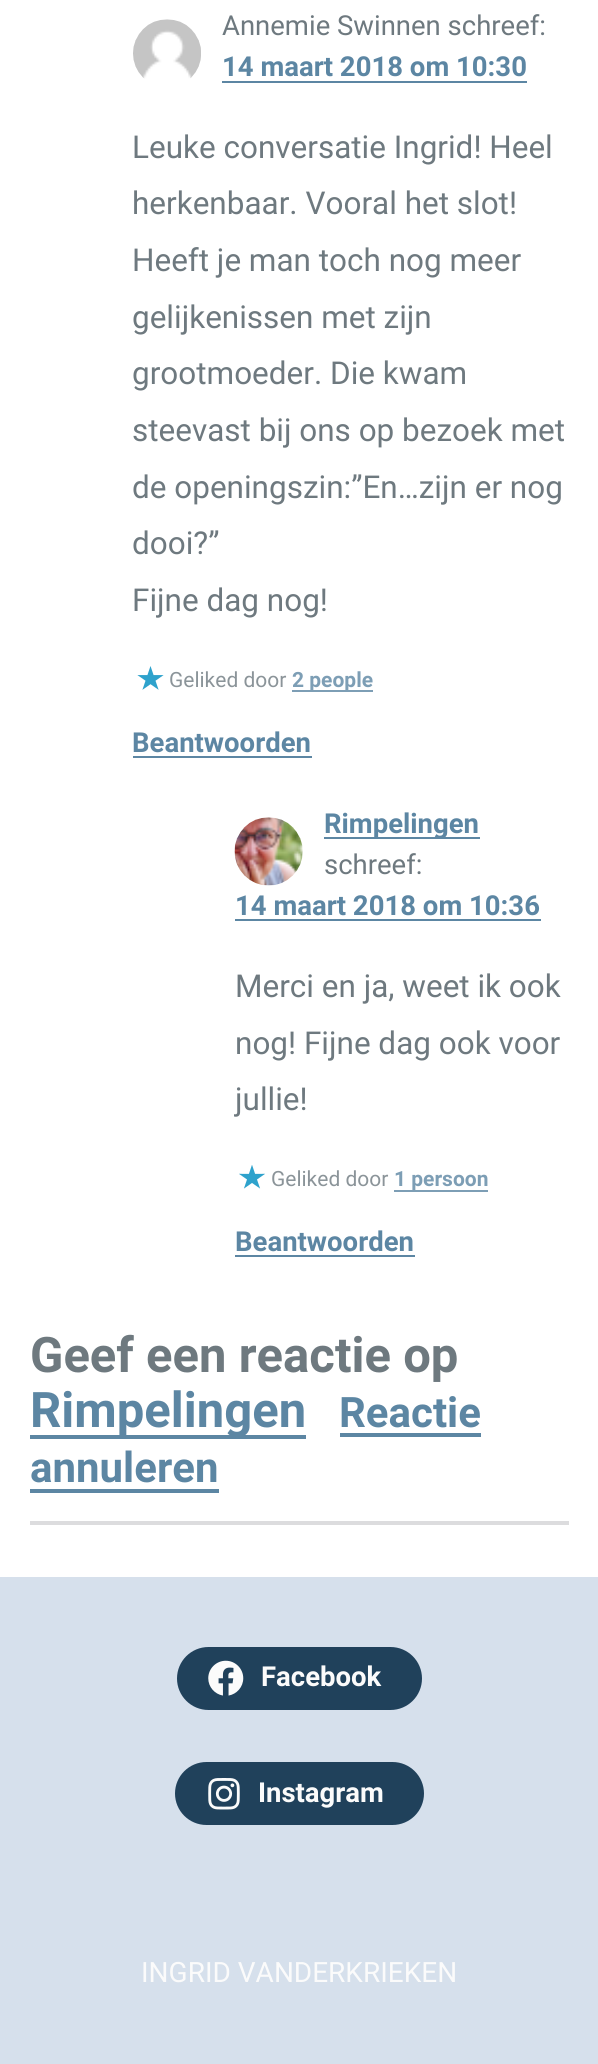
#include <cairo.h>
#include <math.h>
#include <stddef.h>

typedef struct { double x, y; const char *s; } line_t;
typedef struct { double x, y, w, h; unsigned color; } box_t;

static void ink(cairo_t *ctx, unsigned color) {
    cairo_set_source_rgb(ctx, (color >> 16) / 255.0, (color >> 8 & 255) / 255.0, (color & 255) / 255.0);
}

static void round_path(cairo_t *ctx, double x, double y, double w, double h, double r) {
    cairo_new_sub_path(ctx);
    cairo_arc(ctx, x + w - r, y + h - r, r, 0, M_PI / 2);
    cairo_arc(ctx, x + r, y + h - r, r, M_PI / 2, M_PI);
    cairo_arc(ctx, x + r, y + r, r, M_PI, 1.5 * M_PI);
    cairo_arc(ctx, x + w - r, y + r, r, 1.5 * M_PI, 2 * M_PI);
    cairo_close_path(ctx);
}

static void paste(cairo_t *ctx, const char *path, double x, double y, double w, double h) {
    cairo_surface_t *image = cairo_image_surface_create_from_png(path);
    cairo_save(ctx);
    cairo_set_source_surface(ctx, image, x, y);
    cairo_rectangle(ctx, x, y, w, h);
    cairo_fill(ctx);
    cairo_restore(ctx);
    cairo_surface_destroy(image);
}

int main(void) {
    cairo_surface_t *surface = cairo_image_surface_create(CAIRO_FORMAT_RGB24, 598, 2064);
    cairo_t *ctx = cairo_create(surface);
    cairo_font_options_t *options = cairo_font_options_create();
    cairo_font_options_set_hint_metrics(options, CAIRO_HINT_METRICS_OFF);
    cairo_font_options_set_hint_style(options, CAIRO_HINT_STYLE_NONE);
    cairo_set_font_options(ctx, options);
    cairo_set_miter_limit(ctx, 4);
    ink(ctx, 0xFFFFFF);
    cairo_paint(ctx);
    paste(ctx, "media/1.png", 133, 19, 68, 60);
    cairo_select_font_face(ctx, "Roboto", CAIRO_FONT_SLANT_NORMAL, CAIRO_FONT_WEIGHT_NORMAL);
    cairo_set_font_size(ctx, 27.5);
    ink(ctx, 0x6E797F);
    cairo_move_to(ctx, 222, 35);
    cairo_show_text(ctx, "Annemie Swinnen schreef:");
    cairo_select_font_face(ctx, "Roboto", CAIRO_FONT_SLANT_NORMAL, CAIRO_FONT_WEIGHT_BOLD);
    ink(ctx, 0x5C86A3);
    cairo_move_to(ctx, 222, 76);
    cairo_show_text(ctx, "14 maart 2018 om 10:30");
    cairo_rectangle(ctx, 222, 81, 305, 2);
    cairo_fill(ctx);
    cairo_select_font_face(ctx, "Roboto", CAIRO_FONT_SLANT_NORMAL, CAIRO_FONT_WEIGHT_NORMAL);
    cairo_set_font_size(ctx, 31.5);
    ink(ctx, 0x6E797F);
    {
        static const line_t items[] = {
            {132, 158, "Leuke conversatie Ingrid! Heel"},
            {132, 214, "herkenbaar. Vooral het slot!"},
            {132, 271, "Heeft je man toch nog meer"},
            {132, 328, "gelijkenissen met zijn"},
            {132, 384, "grootmoeder. Die kwam"},
            {132, 441, "steevast bij ons op bezoek met"},
            {132, 498, "de openingszin:”En…zijn er nog"},
            {132, 554, "dooi?”"},
            {132, 611, "Fijne dag nog!"},
        };
        for (size_t i = 0; i < sizeof items / sizeof *items; i++) {
            cairo_move_to(ctx, items[i].x, items[i].y);
            cairo_show_text(ctx, items[i].s);
        }
    }
    paste(ctx, "media/2.png", 137, 666, 27, 24);
    cairo_set_font_size(ctx, 21);
    ink(ctx, 0x8B9499);
    cairo_move_to(ctx, 169, 687);
    cairo_show_text(ctx, "Geliked door");
    ink(ctx, 0x7D9EB5);
    cairo_rectangle(ctx, 292, 690, 81, 2);
    cairo_fill(ctx);
    cairo_select_font_face(ctx, "Roboto", CAIRO_FONT_SLANT_NORMAL, CAIRO_FONT_WEIGHT_BOLD);
    cairo_move_to(ctx, 292, 687);
    cairo_show_text(ctx, "2 people");
    cairo_set_font_size(ctx, 27.5);
    ink(ctx, 0x5C86A3);
    cairo_move_to(ctx, 132, 752);
    cairo_show_text(ctx, "Beantwoorden");
    cairo_rectangle(ctx, 133, 756, 179, 2);
    cairo_fill(ctx);
    paste(ctx, "media/3.png", 234, 817, 69, 69);
    cairo_rectangle(ctx, 324, 837, 156, 2);
    cairo_fill(ctx);
    cairo_move_to(ctx, 324, 833);
    cairo_show_text(ctx, "Rimpelingen");
    cairo_select_font_face(ctx, "Roboto", CAIRO_FONT_SLANT_NORMAL, CAIRO_FONT_WEIGHT_NORMAL);
    ink(ctx, 0x6E797F);
    cairo_move_to(ctx, 324, 874);
    cairo_show_text(ctx, "schreef:");
    cairo_select_font_face(ctx, "Roboto", CAIRO_FONT_SLANT_NORMAL, CAIRO_FONT_WEIGHT_BOLD);
    ink(ctx, 0x5C86A3);
    cairo_move_to(ctx, 235, 915);
    cairo_show_text(ctx, "14 maart 2018 om 10:36");
    cairo_rectangle(ctx, 235, 919, 306, 2);
    cairo_fill(ctx);
    cairo_select_font_face(ctx, "Roboto", CAIRO_FONT_SLANT_NORMAL, CAIRO_FONT_WEIGHT_NORMAL);
    cairo_set_font_size(ctx, 31.5);
    ink(ctx, 0x6E797F);
    {
        static const line_t items[] = {
            {235, 997, "Merci en ja, weet ik ook"},
            {235, 1054, "nog! Fijne dag ook voor"},
            {235, 1110, "jullie!"},
        };
        for (size_t i = 0; i < sizeof items / sizeof *items; i++) {
            cairo_move_to(ctx, items[i].x, items[i].y);
            cairo_show_text(ctx, items[i].s);
        }
    }
    paste(ctx, "media/4.png", 239, 1165, 26, 24);
    cairo_set_font_size(ctx, 21);
    ink(ctx, 0x8B9499);
    cairo_move_to(ctx, 271, 1186);
    cairo_show_text(ctx, "Geliked door");
    ink(ctx, 0x7D9EB5);
    cairo_rectangle(ctx, 394, 1190, 94, 2);
    cairo_fill(ctx);
    cairo_select_font_face(ctx, "Roboto", CAIRO_FONT_SLANT_NORMAL, CAIRO_FONT_WEIGHT_BOLD);
    cairo_move_to(ctx, 394, 1186);
    cairo_show_text(ctx, "1 persoon");
    cairo_set_font_size(ctx, 27.5);
    ink(ctx, 0x5C86A3);
    cairo_move_to(ctx, 235, 1251);
    cairo_show_text(ctx, "Beantwoorden");
    cairo_rectangle(ctx, 235, 1255, 180, 2);
    cairo_fill(ctx);
    cairo_set_font_size(ctx, 49);
    ink(ctx, 0x6E797F);
    cairo_move_to(ctx, 30, 1372);
    cairo_show_text(ctx, "Geef een reactie op");
    ink(ctx, 0x5C86A3);
    cairo_rectangle(ctx, 30, 1435, 276, 4);
    cairo_fill(ctx);
    cairo_move_to(ctx, 30, 1427);
    cairo_show_text(ctx, "Rimpelingen");
    cairo_set_font_size(ctx, 42);
    cairo_move_to(ctx, 339, 1427);
    cairo_show_text(ctx, "Reactie");
    cairo_rectangle(ctx, 340, 1433, 141, 4);
    cairo_fill(ctx);
    cairo_move_to(ctx, 30, 1482);
    cairo_show_text(ctx, "annuleren");
    {
        static const box_t items[] = {
            {30, 1489, 189, 4, 0x5C86A3},
            {30, 1521, 539, 4, 0xDCDCDE},
            {0, 1577, 598, 487, 0xD6E0EC},
        };
        for (size_t i = 0; i < sizeof items / sizeof *items; i++) {
            ink(ctx, items[i].color);
            cairo_rectangle(ctx, items[i].x, items[i].y, items[i].w, items[i].h);
            cairo_fill(ctx);
        }
    }
    ink(ctx, 0x20415B);
    round_path(ctx, 177, 1647, 245, 63, 31.5);
    cairo_fill(ctx);
    paste(ctx, "media/5.png", 208, 1660, 36, 36);
    cairo_set_font_size(ctx, 27.5);
    ink(ctx, 0xFBFBFB);
    cairo_move_to(ctx, 261, 1686);
    cairo_show_text(ctx, "Facebook");
    ink(ctx, 0x20415B);
    round_path(ctx, 175, 1762, 249, 63, 31.5);
    cairo_fill(ctx);
    paste(ctx, "media/6.png", 208, 1778, 32, 32);
    ink(ctx, 0xFBFBFB);
    cairo_move_to(ctx, 258, 1802);
    cairo_show_text(ctx, "Instagram");
    cairo_select_font_face(ctx, "Roboto", CAIRO_FONT_SLANT_NORMAL, CAIRO_FONT_WEIGHT_NORMAL);
    cairo_set_font_size(ctx, 28);
    cairo_move_to(ctx, 141, 1982);
    cairo_show_text(ctx, "INGRID VANDERKRIEKEN");
    cairo_surface_write_to_png(surface, "image.png");
    cairo_font_options_destroy(options);
    cairo_destroy(ctx);
    cairo_surface_destroy(surface);
    return 0;
}
